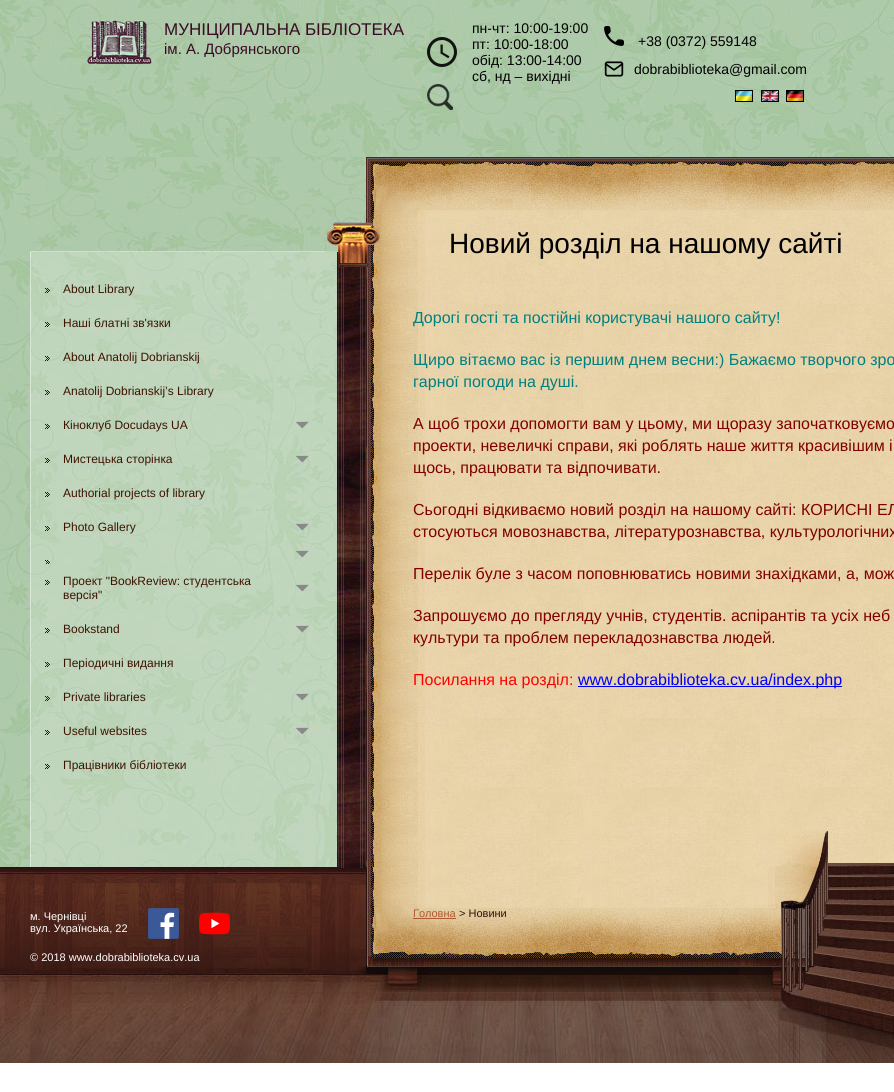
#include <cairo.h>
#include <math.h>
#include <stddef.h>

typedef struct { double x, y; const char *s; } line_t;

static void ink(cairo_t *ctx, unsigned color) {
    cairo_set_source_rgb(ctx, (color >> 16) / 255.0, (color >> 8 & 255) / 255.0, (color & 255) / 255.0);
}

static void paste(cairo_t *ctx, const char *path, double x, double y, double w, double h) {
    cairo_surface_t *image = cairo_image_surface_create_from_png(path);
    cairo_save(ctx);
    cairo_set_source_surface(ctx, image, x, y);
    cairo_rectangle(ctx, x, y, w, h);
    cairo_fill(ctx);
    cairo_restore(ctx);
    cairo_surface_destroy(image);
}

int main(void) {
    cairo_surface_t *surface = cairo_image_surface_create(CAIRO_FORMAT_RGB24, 894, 1092);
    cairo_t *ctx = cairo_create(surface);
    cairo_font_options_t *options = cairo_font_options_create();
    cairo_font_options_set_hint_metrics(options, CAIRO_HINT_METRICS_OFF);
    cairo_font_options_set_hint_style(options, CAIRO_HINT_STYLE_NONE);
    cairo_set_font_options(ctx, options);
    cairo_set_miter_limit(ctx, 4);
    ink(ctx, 0xFFFFFF);
    cairo_paint(ctx);
    paste(ctx, "media/1.png", 0, 0, 894, 157);
    paste(ctx, "media/2.png", 87, 20, 65, 45);
    cairo_select_font_face(ctx, "Liberation Sans", CAIRO_FONT_SLANT_NORMAL, CAIRO_FONT_WEIGHT_NORMAL);
    cairo_set_font_size(ctx, 17);
    ink(ctx, 0x380B22);
    cairo_move_to(ctx, 164, 35);
    cairo_show_text(ctx, "МУНІЦИПАЛЬНА БІБЛІОТЕКА");
    cairo_set_font_size(ctx, 15);
    cairo_move_to(ctx, 164, 54);
    cairo_show_text(ctx, "ім. А. Добрянського");
    paste(ctx, "media/3.png", 427, 37, 30, 30);
    cairo_set_font_size(ctx, 14);
    ink(ctx, 0x000000);
    {
        static const line_t items[] = {
            {472, 33, "пн-чт: 10:00-19:00"},
            {472, 49, "пт: 10:00-18:00"},
            {472, 65, "обід: 13:00-14:00"},
            {472, 81, "сб, нд – вихідні"},
        };
        for (size_t i = 0; i < sizeof items / sizeof *items; i++) {
            cairo_move_to(ctx, items[i].x, items[i].y);
            cairo_show_text(ctx, items[i].s);
        }
    }
    paste(ctx, "media/4.png", 604, 26, 20, 20);
    cairo_move_to(ctx, 638, 46);
    cairo_show_text(ctx, "+38 (0372) 559148");
    paste(ctx, "media/5.png", 604, 61, 20, 16);
    cairo_move_to(ctx, 634, 74);
    cairo_show_text(ctx, "dobrabiblioteka@gmail.com");
    paste(ctx, "media/6.png", 427, 84, 26, 26);
    paste(ctx, "media/7.png", 735, 90, 18, 12);
    paste(ctx, "media/8.png", 761, 90, 18, 12);
    paste(ctx, "media/9.png", 786, 90, 18, 12);
    paste(ctx, "media/10.png", 0, 157, 337, 710);
    paste(ctx, "media/11.png", 30, 252, 336, 615);
    paste(ctx, "media/12.png", 30, 157, 336, 95);
    paste(ctx, "media/37.png", 366, 219, 528, 648);
    paste(ctx, "media/13.png", 327, 222, 53, 45);
    paste(ctx, "media/14.png", 45, 288, 5, 5);
    cairo_set_font_size(ctx, 12);
    ink(ctx, 0x3D1300);
    cairo_move_to(ctx, 63, 293);
    cairo_show_text(ctx, "About Library");
    paste(ctx, "media/15.png", 45, 322, 5, 5);
    cairo_move_to(ctx, 63, 327);
    cairo_show_text(ctx, "Наші блатні зв'язки");
    paste(ctx, "media/16.png", 45, 356, 5, 5);
    cairo_move_to(ctx, 63, 361);
    cairo_show_text(ctx, "About Anatolij Dobrianskij");
    paste(ctx, "media/17.png", 45, 390, 5, 5);
    cairo_move_to(ctx, 63, 395);
    cairo_show_text(ctx, "Anatolij Dobrianskij’s Library");
    paste(ctx, "media/18.png", 45, 424, 5, 5);
    cairo_move_to(ctx, 63, 429);
    cairo_show_text(ctx, "Кіноклуб Docudays UA");
    paste(ctx, "media/19.png", 296, 421, 13, 8);
    paste(ctx, "media/20.png", 45, 458, 5, 5);
    cairo_move_to(ctx, 63, 463);
    cairo_show_text(ctx, "Мистецька сторінка");
    paste(ctx, "media/21.png", 296, 455, 13, 8);
    paste(ctx, "media/22.png", 45, 492, 5, 5);
    cairo_move_to(ctx, 63, 497);
    cairo_show_text(ctx, "Authorial projects of library");
    paste(ctx, "media/23.png", 45, 526, 5, 5);
    cairo_move_to(ctx, 63, 531);
    cairo_show_text(ctx, "Photo Gallery");
    paste(ctx, "media/24.png", 296, 523, 13, 8);
    paste(ctx, "media/25.png", 45, 560, 5, 4);
    paste(ctx, "media/26.png", 296, 550, 13, 8);
    paste(ctx, "media/27.png", 45, 580, 5, 5);
    cairo_move_to(ctx, 63, 585);
    cairo_show_text(ctx, "Проект \"BookReview: студентська");
    paste(ctx, "media/28.png", 296, 584, 13, 8);
    cairo_move_to(ctx, 63, 599);
    cairo_show_text(ctx, "версія\"");
    paste(ctx, "media/29.png", 45, 628, 5, 5);
    cairo_move_to(ctx, 63, 633);
    cairo_show_text(ctx, "Bookstand");
    paste(ctx, "media/30.png", 296, 625, 13, 8);
    paste(ctx, "media/31.png", 45, 662, 5, 5);
    cairo_move_to(ctx, 63, 667);
    cairo_show_text(ctx, "Періодичні видання");
    paste(ctx, "media/32.png", 45, 696, 5, 5);
    cairo_move_to(ctx, 63, 701);
    cairo_show_text(ctx, "Private libraries");
    paste(ctx, "media/33.png", 296, 693, 13, 8);
    paste(ctx, "media/34.png", 45, 730, 5, 5);
    cairo_move_to(ctx, 63, 735);
    cairo_show_text(ctx, "Useful websites");
    paste(ctx, "media/35.png", 296, 727, 13, 8);
    paste(ctx, "media/36.png", 45, 764, 5, 5);
    cairo_move_to(ctx, 63, 769);
    cairo_show_text(ctx, "Працівники бібліотеки");
    paste(ctx, "media/38.png", 366, 157, 528, 62);
    cairo_set_font_size(ctx, 28);
    ink(ctx, 0x000000);
    cairo_move_to(ctx, 449, 253);
    cairo_show_text(ctx, "Новий розділ на нашому сайті");
    cairo_set_font_size(ctx, 16);
    ink(ctx, 0x008080);
    {
        static const line_t items[] = {
            {413, 323, "Дорогі гості та постійні користувачі нашого сайту!"},
            {413, 365, "Щиро вітаємо вас із першим днем весни:) Бажаємо творчого зро"},
            {413, 387, "гарної погоди на душі."},
        };
        for (size_t i = 0; i < sizeof items / sizeof *items; i++) {
            cairo_move_to(ctx, items[i].x, items[i].y);
            cairo_show_text(ctx, items[i].s);
        }
    }
    ink(ctx, 0x800000);
    {
        static const line_t items[] = {
            {413, 429, "А щоб трохи допомогти вам у цьому, ми щоразу започатковуємо"},
            {413, 451, "проекти, невеличкі справи, які роблять наше життя красивішим і"},
            {413, 473, "щось, працювати та відпочивати."},
            {413, 515, "Сьогодні відкиваємо новий розділ на нашому сайті: КОРИСНІ ЕЛ"},
            {413, 537, "стосуються мовознавства, літературознавства, культурологічних"},
            {413, 579, "Перелік буле з часом поповнюватись новими знахідками, а, мож"},
            {413, 621, "Запрошуємо до прегляду учнів, студентів. аспірантів та усіх неб"},
            {413, 643, "культури та проблем перекладознавства людей."},
        };
        for (size_t i = 0; i < sizeof items / sizeof *items; i++) {
            cairo_move_to(ctx, items[i].x, items[i].y);
            cairo_show_text(ctx, items[i].s);
        }
    }
    ink(ctx, 0xFF0000);
    cairo_move_to(ctx, 413, 685);
    cairo_show_text(ctx, "Посилання на розділ:");
    ink(ctx, 0x0000EE);
    cairo_rectangle(ctx, 578, 686, 264, 1);
    cairo_fill(ctx);
    ink(ctx, 0x0000FF);
    cairo_move_to(ctx, 578, 685);
    cairo_show_text(ctx, "www.dobrabiblioteka.cv.ua/index.php");
    paste(ctx, "media/39.png", 778, 831, 116, 36);
    paste(ctx, "media/40.png", 0, 867, 30, 196);
    paste(ctx, "media/41.png", 30, 867, 864, 196);
    cairo_set_font_size(ctx, 11);
    ink(ctx, 0xFFFFFF);
    cairo_move_to(ctx, 30, 920);
    cairo_show_text(ctx, "м. Чернівці");
    cairo_move_to(ctx, 30, 932);
    cairo_show_text(ctx, "вул. Українська, 22");
    paste(ctx, "media/42.png", 148, 908, 31, 31);
    paste(ctx, "media/43.png", 199, 912, 31, 23);
    cairo_move_to(ctx, 30, 961);
    cairo_show_text(ctx, "© 2018 www.dobrabiblioteka.cv.ua");
    ink(ctx, 0xAF5931);
    cairo_move_to(ctx, 413, 917);
    cairo_show_text(ctx, "Головна");
    cairo_rectangle(ctx, 413, 918, 43, 1);
    cairo_fill(ctx);
    ink(ctx, 0x321011);
    cairo_move_to(ctx, 459, 917);
    cairo_show_text(ctx, "> Новини");
    cairo_surface_write_to_png(surface, "image.png");
    cairo_font_options_destroy(options);
    cairo_destroy(ctx);
    cairo_surface_destroy(surface);
    return 0;
}
